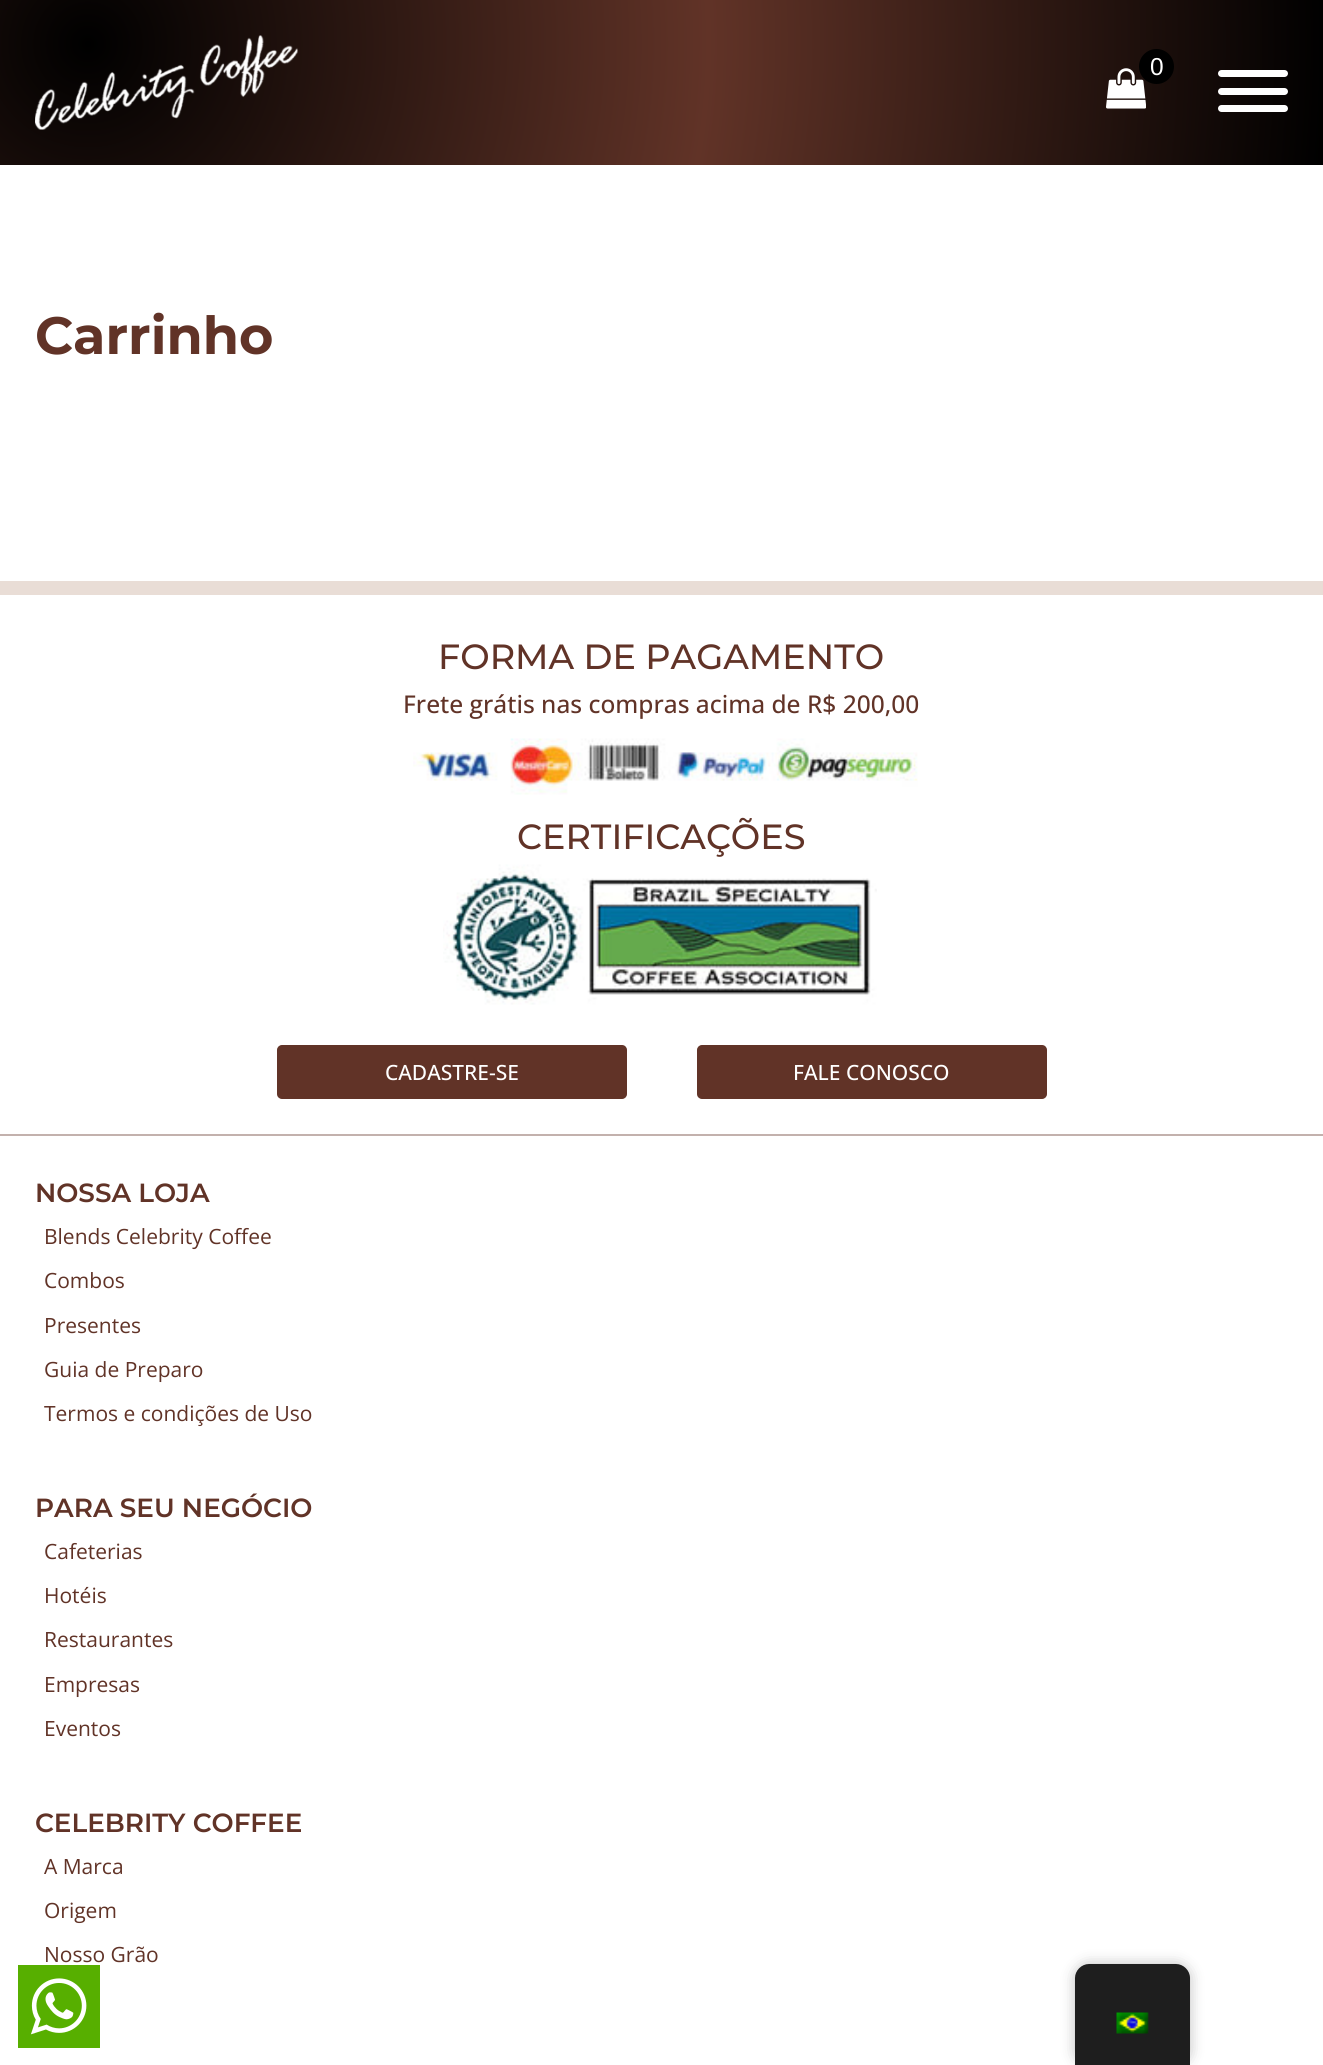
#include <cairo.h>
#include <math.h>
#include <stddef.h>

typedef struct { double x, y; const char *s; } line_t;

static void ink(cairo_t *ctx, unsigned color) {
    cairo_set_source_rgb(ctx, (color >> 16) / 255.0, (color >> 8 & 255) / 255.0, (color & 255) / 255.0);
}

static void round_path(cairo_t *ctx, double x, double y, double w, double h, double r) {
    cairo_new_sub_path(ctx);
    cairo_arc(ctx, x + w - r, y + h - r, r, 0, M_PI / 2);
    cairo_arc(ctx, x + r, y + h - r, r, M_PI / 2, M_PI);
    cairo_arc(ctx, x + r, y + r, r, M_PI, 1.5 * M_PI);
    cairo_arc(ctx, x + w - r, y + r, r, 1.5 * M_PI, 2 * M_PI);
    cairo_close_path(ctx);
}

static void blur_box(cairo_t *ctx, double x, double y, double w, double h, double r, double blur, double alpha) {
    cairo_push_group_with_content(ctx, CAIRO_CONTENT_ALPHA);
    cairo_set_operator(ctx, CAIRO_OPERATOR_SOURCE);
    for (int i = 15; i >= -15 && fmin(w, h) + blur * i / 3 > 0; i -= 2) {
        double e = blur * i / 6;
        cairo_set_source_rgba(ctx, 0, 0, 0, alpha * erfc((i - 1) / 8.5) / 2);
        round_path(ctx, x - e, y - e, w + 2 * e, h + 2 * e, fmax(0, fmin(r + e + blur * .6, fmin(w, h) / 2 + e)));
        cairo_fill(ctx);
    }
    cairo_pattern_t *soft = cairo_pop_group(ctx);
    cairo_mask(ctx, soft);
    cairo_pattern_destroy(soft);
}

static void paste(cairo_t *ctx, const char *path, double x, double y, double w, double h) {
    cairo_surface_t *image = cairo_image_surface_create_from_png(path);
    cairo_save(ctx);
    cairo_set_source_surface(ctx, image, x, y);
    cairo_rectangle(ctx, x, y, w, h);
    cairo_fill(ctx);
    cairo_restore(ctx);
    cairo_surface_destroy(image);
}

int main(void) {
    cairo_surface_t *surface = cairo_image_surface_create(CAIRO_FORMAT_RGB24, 1323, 2065);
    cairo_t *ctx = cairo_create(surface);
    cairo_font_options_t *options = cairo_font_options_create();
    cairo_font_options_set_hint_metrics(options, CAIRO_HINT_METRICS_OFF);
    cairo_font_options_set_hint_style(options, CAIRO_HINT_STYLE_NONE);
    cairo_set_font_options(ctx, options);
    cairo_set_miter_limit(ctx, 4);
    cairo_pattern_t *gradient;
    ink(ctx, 0xFFFFFF);
    cairo_paint(ctx);
    gradient = cairo_pattern_create_radial(88, 44, 0, 88, 44, 1241);
    cairo_pattern_add_color_stop_rgba(gradient, 0, 0, 0, 0, 1);
    cairo_pattern_add_color_stop_rgba(gradient, 0.5, 0.38, 0.2, 0.153, 1);
    cairo_pattern_add_color_stop_rgba(gradient, 1, 0, 0, 0, 1);
    cairo_set_source(ctx, gradient);
    cairo_pattern_destroy(gradient);
    cairo_rectangle(ctx, 0, 0, 1323, 165);
    cairo_fill(ctx);
    paste(ctx, "media/1.png", 35, 35, 263, 95);
    paste(ctx, "media/2.png", 1106, 68, 40, 41);
    ink(ctx, 0x000000);
    cairo_arc(ctx, 1156.5, 66.5, 17.5, 0, 2 * M_PI);
    cairo_fill(ctx);
    cairo_select_font_face(ctx, "Liberation Sans", CAIRO_FONT_SLANT_NORMAL, CAIRO_FONT_WEIGHT_NORMAL);
    cairo_set_font_size(ctx, 24.5);
    ink(ctx, 0xFFFFFF);
    cairo_move_to(ctx, 1150, 75);
    cairo_show_text(ctx, "0");
    round_path(ctx, 1218, 88, 70, 7, 3.5);
    cairo_fill(ctx);
    round_path(ctx, 1218, 70, 70, 7, 3.5);
    cairo_fill(ctx);
    round_path(ctx, 1218, 105, 70, 7, 3.5);
    cairo_fill(ctx);
    cairo_select_font_face(ctx, "Montserrat", CAIRO_FONT_SLANT_NORMAL, CAIRO_FONT_WEIGHT_BOLD);
    cairo_set_font_size(ctx, 52.5);
    ink(ctx, 0x613327);
    cairo_move_to(ctx, 35, 354);
    cairo_show_text(ctx, "Carrinho");
    ink(ctx, 0xE9DDD6);
    cairo_rectangle(ctx, 0, 581, 1323, 14);
    cairo_fill(ctx);
    cairo_select_font_face(ctx, "Montserrat Medium", CAIRO_FONT_SLANT_NORMAL, CAIRO_FONT_WEIGHT_NORMAL);
    cairo_set_font_size(ctx, 35);
    ink(ctx, 0x613327);
    cairo_move_to(ctx, 438, 669);
    cairo_show_text(ctx, "FORMA DE PAGAMENTO");
    cairo_select_font_face(ctx, "Open Sans Medium", CAIRO_FONT_SLANT_NORMAL, CAIRO_FONT_WEIGHT_NORMAL);
    cairo_set_font_size(ctx, 24.5);
    cairo_move_to(ctx, 403, 713);
    cairo_show_text(ctx, "Frete grátis nas compras acima de R$ 200,00");
    paste(ctx, "media/3.png", 413, 738, 505, 57);
    cairo_select_font_face(ctx, "Montserrat Medium", CAIRO_FONT_SLANT_NORMAL, CAIRO_FONT_WEIGHT_NORMAL);
    cairo_set_font_size(ctx, 35);
    cairo_move_to(ctx, 517, 849);
    cairo_show_text(ctx, "CERTIFICAÇÕES");
    paste(ctx, "media/4.png", 443, 864, 434, 141);
    round_path(ctx, 278, 1046, 348, 52, 4);
    cairo_fill_preserve(ctx);
    cairo_stroke(ctx);
    cairo_select_font_face(ctx, "Open Sans Medium", CAIRO_FONT_SLANT_NORMAL, CAIRO_FONT_WEIGHT_NORMAL);
    cairo_set_font_size(ctx, 21);
    ink(ctx, 0xFFFFFF);
    cairo_move_to(ctx, 385, 1080);
    cairo_show_text(ctx, "CADASTRE-SE");
    ink(ctx, 0x613327);
    round_path(ctx, 698, 1046, 348, 52, 4);
    cairo_fill_preserve(ctx);
    cairo_stroke(ctx);
    ink(ctx, 0xFFFFFF);
    cairo_move_to(ctx, 793, 1080);
    cairo_show_text(ctx, "FALE CONOSCO");
    ink(ctx, 0xC3B1AD);
    cairo_rectangle(ctx, 0, 1134, 1323, 2);
    cairo_fill(ctx);
    cairo_select_font_face(ctx, "Montserrat SemiBold", CAIRO_FONT_SLANT_NORMAL, CAIRO_FONT_WEIGHT_NORMAL);
    cairo_set_font_size(ctx, 26.25);
    ink(ctx, 0x613327);
    cairo_move_to(ctx, 35, 1202);
    cairo_show_text(ctx, "NOSSA LOJA");
    cairo_select_font_face(ctx, "Open Sans", CAIRO_FONT_SLANT_NORMAL, CAIRO_FONT_WEIGHT_NORMAL);
    cairo_set_font_size(ctx, 21);
    {
        static const line_t items[] = {
            {44, 1244, "Blends Celebrity Coffee"},
            {44, 1288, "Combos"},
            {44, 1333, "Presentes"},
            {44, 1377, "Guia de Preparo"},
            {44, 1421, "Termos e condições de Uso"},
        };
        for (size_t i = 0; i < sizeof items / sizeof *items; i++) {
            cairo_move_to(ctx, items[i].x, items[i].y);
            cairo_show_text(ctx, items[i].s);
        }
    }
    cairo_select_font_face(ctx, "Montserrat SemiBold", CAIRO_FONT_SLANT_NORMAL, CAIRO_FONT_WEIGHT_NORMAL);
    cairo_set_font_size(ctx, 26.25);
    cairo_move_to(ctx, 35, 1517);
    cairo_show_text(ctx, "PARA SEU NEGÓCIO");
    cairo_select_font_face(ctx, "Open Sans", CAIRO_FONT_SLANT_NORMAL, CAIRO_FONT_WEIGHT_NORMAL);
    cairo_set_font_size(ctx, 21);
    {
        static const line_t items[] = {
            {44, 1559, "Cafeterias"},
            {44, 1603, "Hotéis"},
            {44, 1647, "Restaurantes"},
            {44, 1692, "Empresas"},
            {44, 1736, "Eventos"},
        };
        for (size_t i = 0; i < sizeof items / sizeof *items; i++) {
            cairo_move_to(ctx, items[i].x, items[i].y);
            cairo_show_text(ctx, items[i].s);
        }
    }
    cairo_select_font_face(ctx, "Montserrat SemiBold", CAIRO_FONT_SLANT_NORMAL, CAIRO_FONT_WEIGHT_NORMAL);
    cairo_set_font_size(ctx, 26.25);
    cairo_move_to(ctx, 35, 1832);
    cairo_show_text(ctx, "CELEBRITY COFFEE");
    cairo_select_font_face(ctx, "Open Sans", CAIRO_FONT_SLANT_NORMAL, CAIRO_FONT_WEIGHT_NORMAL);
    cairo_set_font_size(ctx, 21);
    {
        static const line_t items[] = {
            {44, 1874, "A Marca"},
            {44, 1918, "Origem"},
            {44, 1962, "Nosso Grão"},
        };
        for (size_t i = 0; i < sizeof items / sizeof *items; i++) {
            cairo_move_to(ctx, items[i].x, items[i].y);
            cairo_show_text(ctx, items[i].s);
        }
    }
    ink(ctx, 0x57AF00);
    cairo_rectangle(ctx, 18, 1965, 82, 83);
    cairo_fill(ctx);
    paste(ctx, "media/5.png", 30, 1978, 57, 57);
    ink(ctx, 0x000000);
    blur_box(ctx, 1075, 1964, 115, 101, 14, 7, 0.25);
    ink(ctx, 0x1E1E1E);
    cairo_new_path(ctx);
    cairo_move_to(ctx, 1089, 1964);
    cairo_line_to(ctx, 1176, 1964);
    cairo_curve_to(ctx, 1183.5, 1964, 1190, 1970.5, 1190, 1978);
    cairo_line_to(ctx, 1190, 2065);
    cairo_line_to(ctx, 1075, 2065);
    cairo_line_to(ctx, 1075, 1978);
    cairo_curve_to(ctx, 1075, 1970.5, 1081.5, 1964, 1089, 1964);
    cairo_close_path(ctx);
    cairo_fill(ctx);
    paste(ctx, "media/6.png", 1116, 2012, 33, 22);
    cairo_surface_write_to_png(surface, "image.png");
    cairo_font_options_destroy(options);
    cairo_destroy(ctx);
    cairo_surface_destroy(surface);
    return 0;
}
